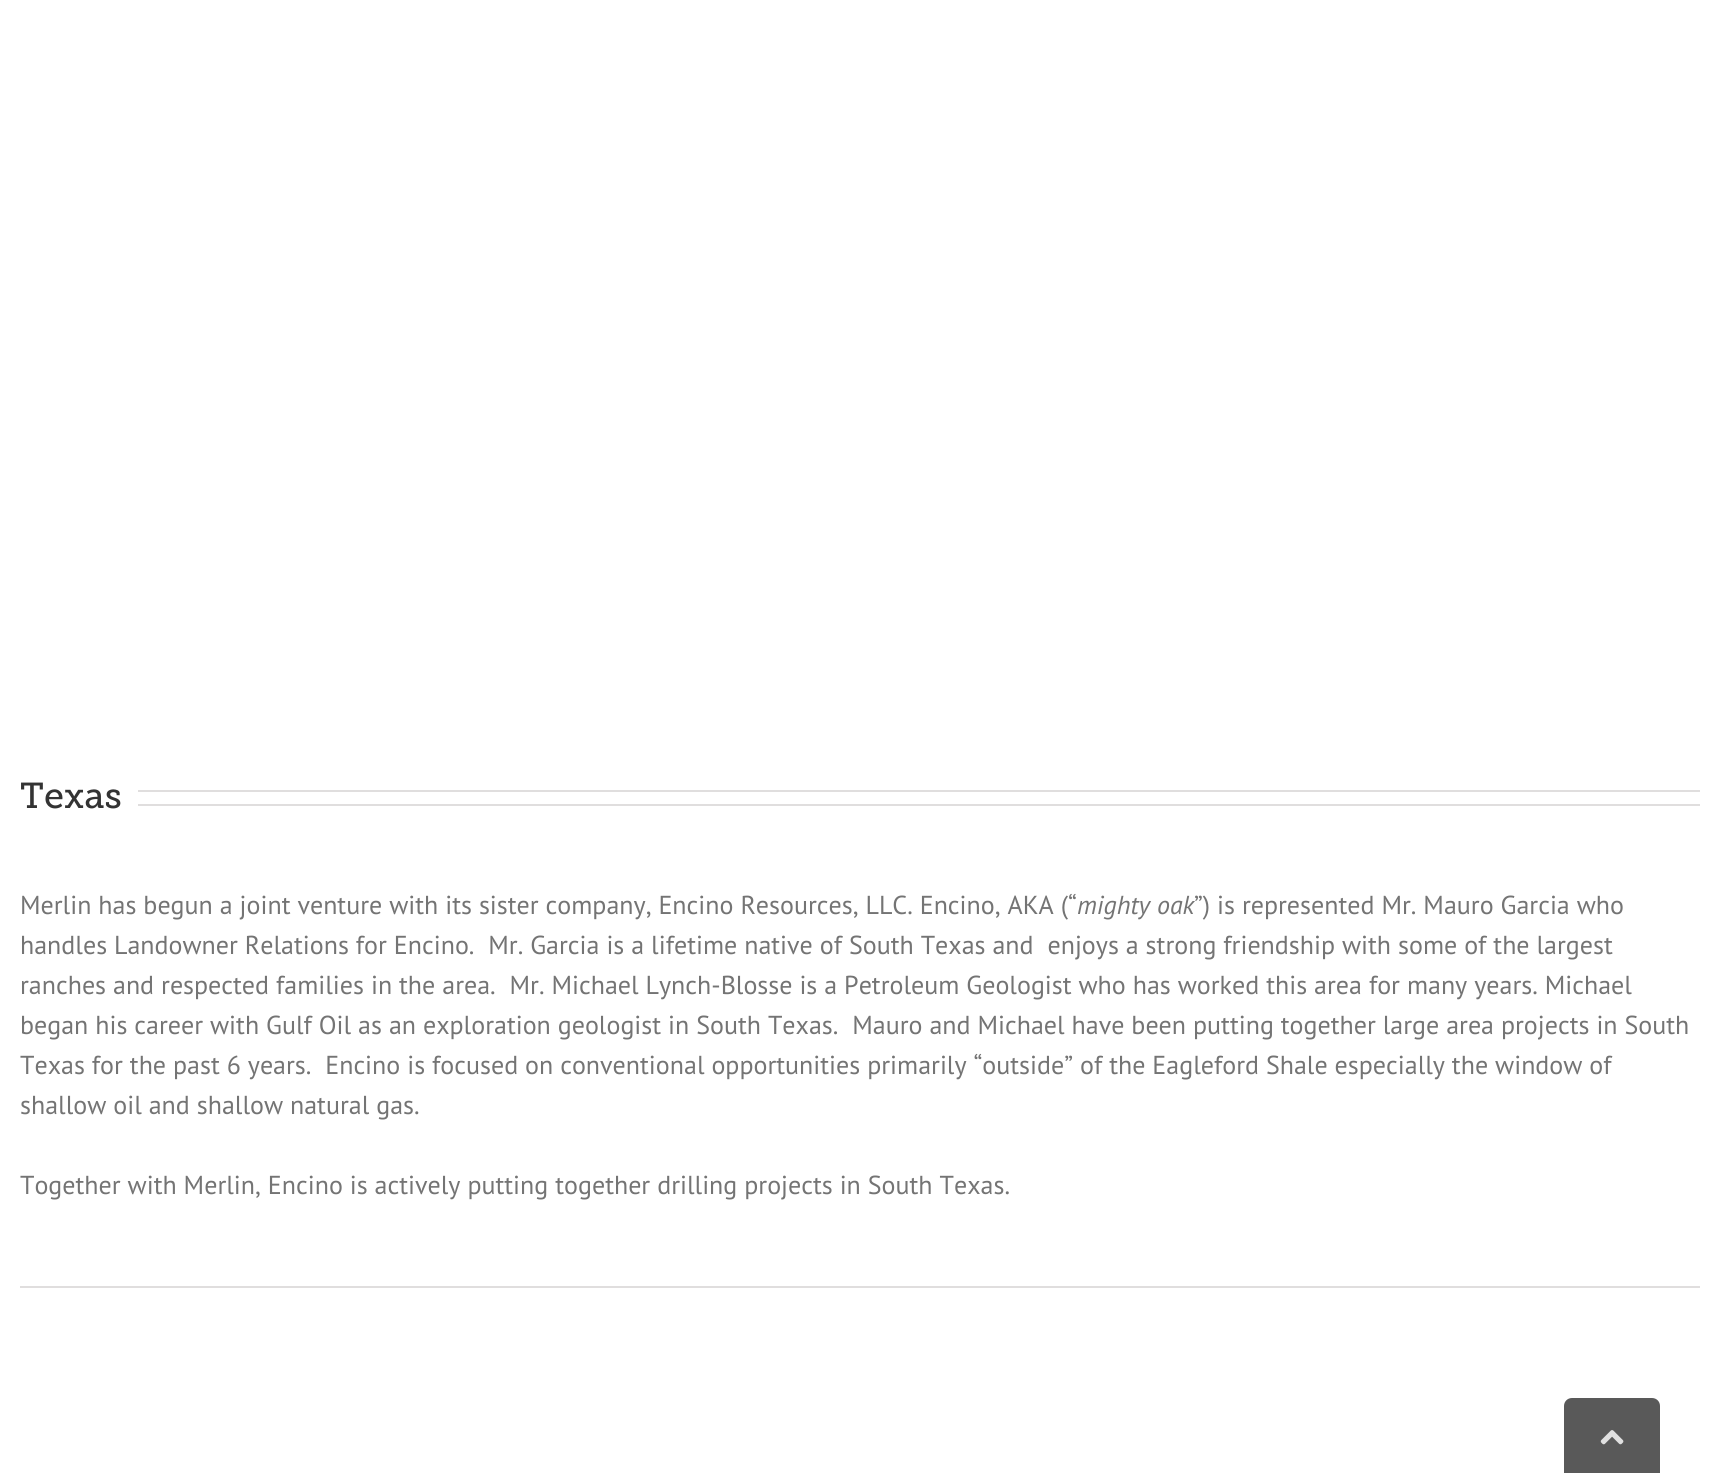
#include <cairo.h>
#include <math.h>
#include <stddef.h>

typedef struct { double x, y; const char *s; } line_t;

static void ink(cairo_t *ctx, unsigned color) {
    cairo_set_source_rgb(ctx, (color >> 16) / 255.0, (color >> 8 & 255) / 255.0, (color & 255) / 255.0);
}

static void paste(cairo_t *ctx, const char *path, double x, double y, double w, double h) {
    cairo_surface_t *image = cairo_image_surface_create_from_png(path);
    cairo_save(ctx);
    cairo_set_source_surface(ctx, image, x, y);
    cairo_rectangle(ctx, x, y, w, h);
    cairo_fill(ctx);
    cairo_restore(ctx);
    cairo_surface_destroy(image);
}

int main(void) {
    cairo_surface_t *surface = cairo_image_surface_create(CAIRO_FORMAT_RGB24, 1719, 1473);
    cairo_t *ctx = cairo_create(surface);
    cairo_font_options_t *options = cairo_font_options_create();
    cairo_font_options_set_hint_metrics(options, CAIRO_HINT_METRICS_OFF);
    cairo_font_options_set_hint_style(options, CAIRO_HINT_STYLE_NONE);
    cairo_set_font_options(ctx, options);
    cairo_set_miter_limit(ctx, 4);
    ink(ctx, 0xFFFFFF);
    cairo_paint(ctx);
    cairo_select_font_face(ctx, "Museo Slab", CAIRO_FONT_SLANT_NORMAL, CAIRO_FONT_WEIGHT_NORMAL);
    cairo_set_font_size(ctx, 36);
    ink(ctx, 0x333333);
    cairo_move_to(ctx, 20, 808);
    cairo_show_text(ctx, "Texas");
    ink(ctx, 0xE0DEDE);
    cairo_rectangle(ctx, 138, 790, 1562, 2);
    cairo_fill(ctx);
    cairo_rectangle(ctx, 138, 804, 1562, 2);
    cairo_fill(ctx);
    cairo_select_font_face(ctx, "PT Sans", CAIRO_FONT_SLANT_NORMAL, CAIRO_FONT_WEIGHT_NORMAL);
    cairo_set_font_size(ctx, 26);
    ink(ctx, 0x747474);
    cairo_move_to(ctx, 20, 914);
    cairo_show_text(ctx, "Merlin has begun a joint venture with its sister company, Encino Resources, LLC. Encino, AKA (“");
    cairo_select_font_face(ctx, "PT Sans", CAIRO_FONT_SLANT_ITALIC, CAIRO_FONT_WEIGHT_NORMAL);
    cairo_move_to(ctx, 1077, 914);
    cairo_show_text(ctx, "mighty oak");
    cairo_select_font_face(ctx, "PT Sans", CAIRO_FONT_SLANT_NORMAL, CAIRO_FONT_WEIGHT_NORMAL);
    {
        static const line_t items[] = {
            {1194, 914, "”) is represented Mr. Mauro Garcia who"},
            {20, 954, "handles Landowner Relations for Encino.  Mr. Garcia is a lifetime native of South Texas and  enjoys a strong friendship with some of the largest"},
            {20, 994, "ranches and respected families in the area.  Mr. Michael Lynch-Blosse is a Petroleum Geologist who has worked this area for many years. Michael"},
            {20, 1034, "began his career with Gulf Oil as an exploration geologist in South Texas.  Mauro and Michael have been putting together large area projects in South"},
            {20, 1074, "Texas for the past 6 years.  Encino is focused on conventional opportunities primarily “outside” of the Eagleford Shale especially the window of"},
            {20, 1114, "shallow oil and shallow natural gas."},
            {20, 1194, "Together with Merlin, Encino is actively putting together drilling projects in South Texas."},
        };
        for (size_t i = 0; i < sizeof items / sizeof *items; i++) {
            cairo_move_to(ctx, items[i].x, items[i].y);
            cairo_show_text(ctx, items[i].s);
        }
    }
    ink(ctx, 0xE0DEDE);
    cairo_rectangle(ctx, 20, 1286, 1680, 2);
    cairo_fill(ctx);
    ink(ctx, 0x595959);
    cairo_new_path(ctx);
    cairo_move_to(ctx, 1572, 1398);
    cairo_line_to(ctx, 1652, 1398);
    cairo_curve_to(ctx, 1656.5, 1398, 1660, 1401.5, 1660, 1406);
    cairo_line_to(ctx, 1660, 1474);
    cairo_line_to(ctx, 1564, 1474);
    cairo_line_to(ctx, 1564, 1406);
    cairo_curve_to(ctx, 1564, 1401.5, 1567.5, 1398, 1572, 1398);
    cairo_close_path(ctx);
    cairo_fill(ctx);
    paste(ctx, "media/1.png", 1600, 1430, 24, 15);
    cairo_surface_write_to_png(surface, "image.png");
    cairo_font_options_destroy(options);
    cairo_destroy(ctx);
    cairo_surface_destroy(surface);
    return 0;
}
